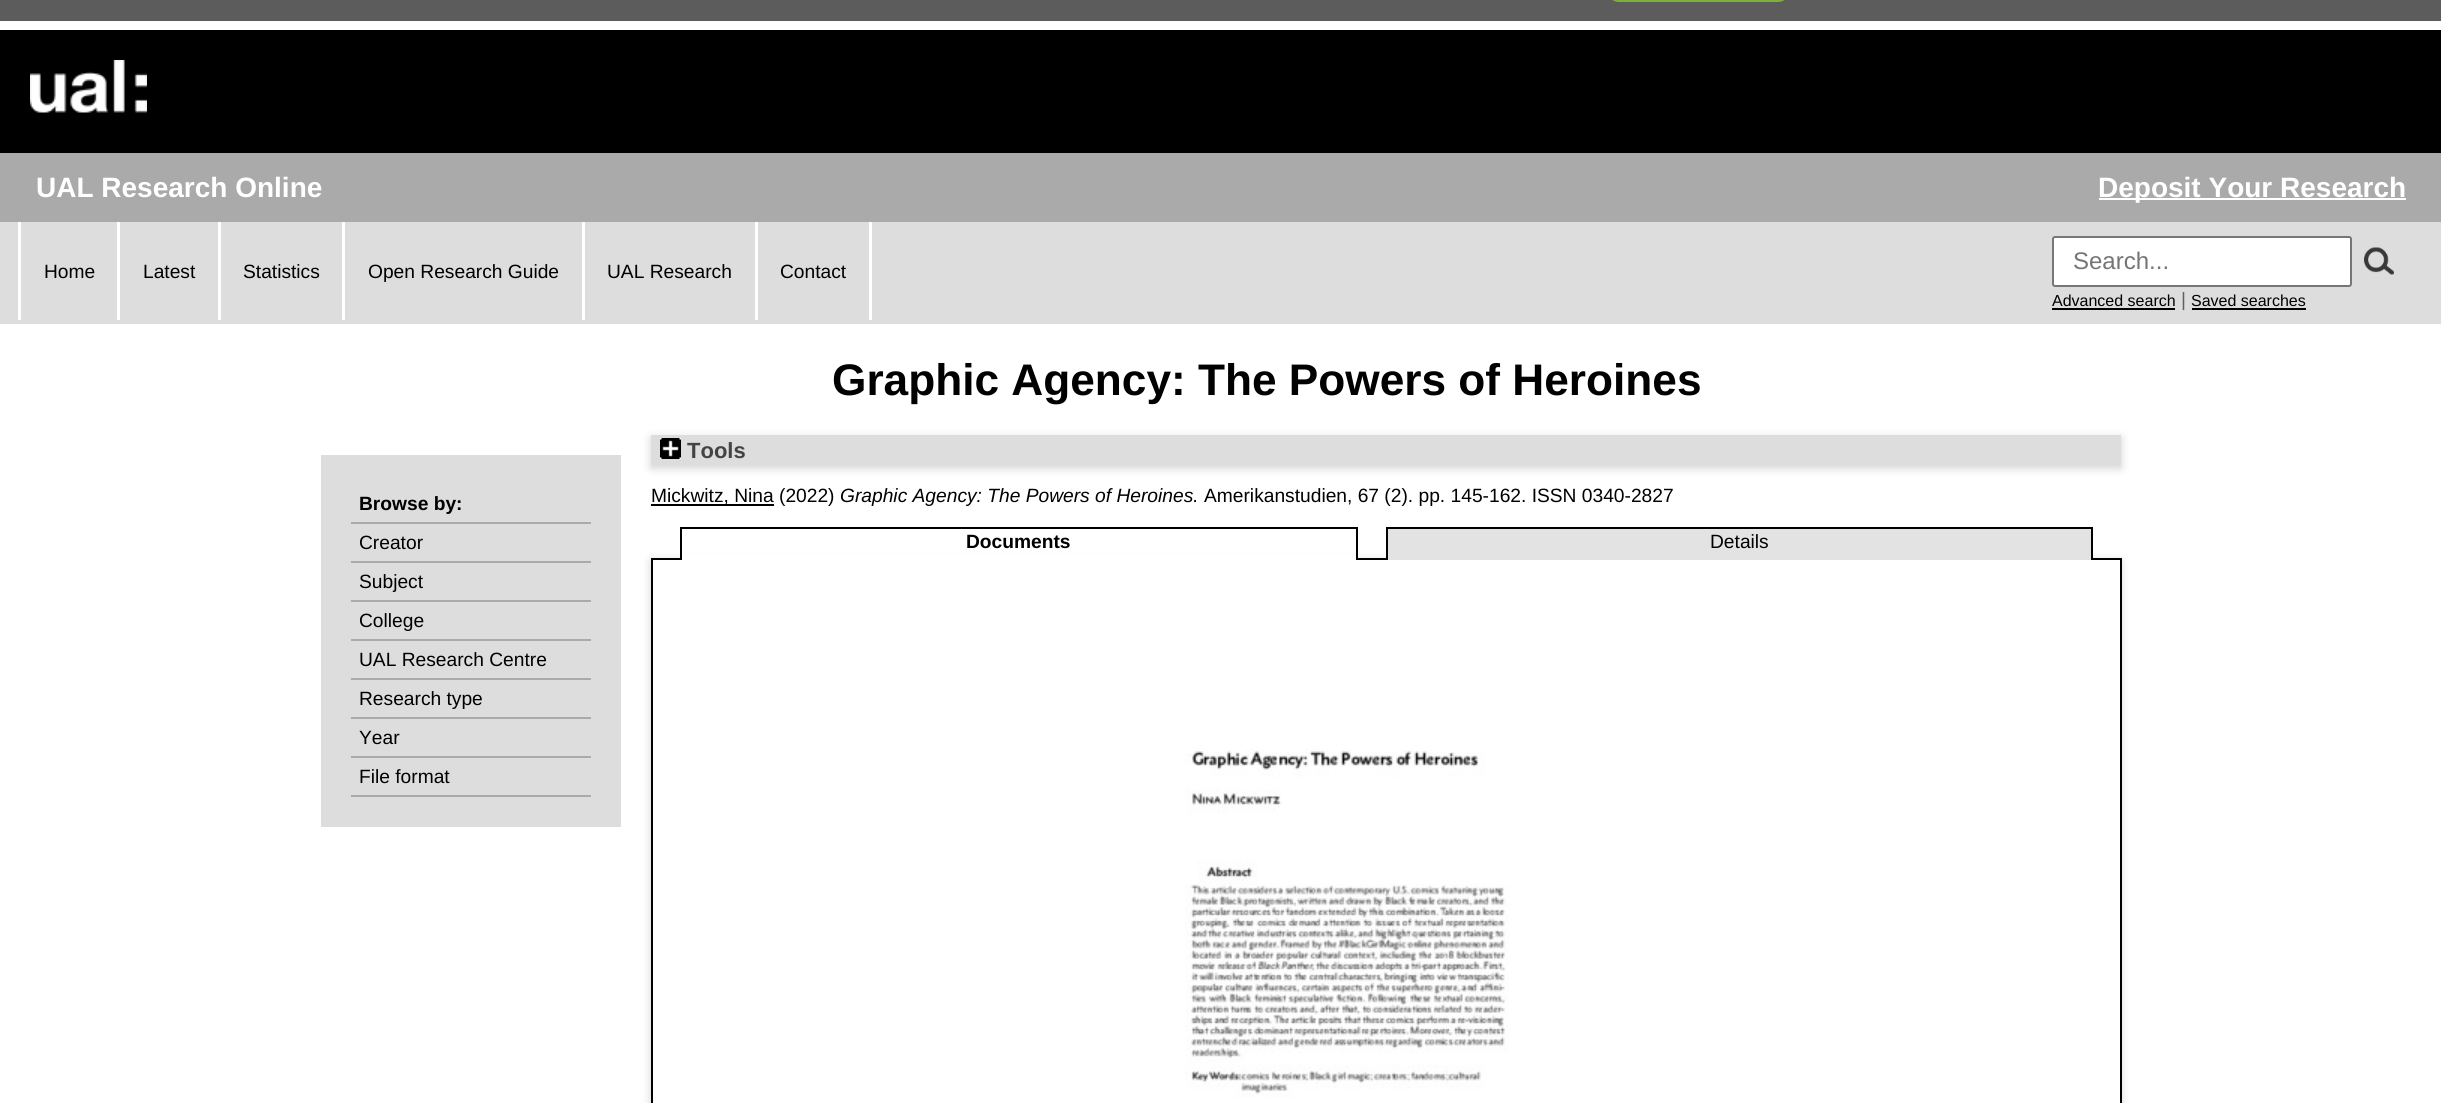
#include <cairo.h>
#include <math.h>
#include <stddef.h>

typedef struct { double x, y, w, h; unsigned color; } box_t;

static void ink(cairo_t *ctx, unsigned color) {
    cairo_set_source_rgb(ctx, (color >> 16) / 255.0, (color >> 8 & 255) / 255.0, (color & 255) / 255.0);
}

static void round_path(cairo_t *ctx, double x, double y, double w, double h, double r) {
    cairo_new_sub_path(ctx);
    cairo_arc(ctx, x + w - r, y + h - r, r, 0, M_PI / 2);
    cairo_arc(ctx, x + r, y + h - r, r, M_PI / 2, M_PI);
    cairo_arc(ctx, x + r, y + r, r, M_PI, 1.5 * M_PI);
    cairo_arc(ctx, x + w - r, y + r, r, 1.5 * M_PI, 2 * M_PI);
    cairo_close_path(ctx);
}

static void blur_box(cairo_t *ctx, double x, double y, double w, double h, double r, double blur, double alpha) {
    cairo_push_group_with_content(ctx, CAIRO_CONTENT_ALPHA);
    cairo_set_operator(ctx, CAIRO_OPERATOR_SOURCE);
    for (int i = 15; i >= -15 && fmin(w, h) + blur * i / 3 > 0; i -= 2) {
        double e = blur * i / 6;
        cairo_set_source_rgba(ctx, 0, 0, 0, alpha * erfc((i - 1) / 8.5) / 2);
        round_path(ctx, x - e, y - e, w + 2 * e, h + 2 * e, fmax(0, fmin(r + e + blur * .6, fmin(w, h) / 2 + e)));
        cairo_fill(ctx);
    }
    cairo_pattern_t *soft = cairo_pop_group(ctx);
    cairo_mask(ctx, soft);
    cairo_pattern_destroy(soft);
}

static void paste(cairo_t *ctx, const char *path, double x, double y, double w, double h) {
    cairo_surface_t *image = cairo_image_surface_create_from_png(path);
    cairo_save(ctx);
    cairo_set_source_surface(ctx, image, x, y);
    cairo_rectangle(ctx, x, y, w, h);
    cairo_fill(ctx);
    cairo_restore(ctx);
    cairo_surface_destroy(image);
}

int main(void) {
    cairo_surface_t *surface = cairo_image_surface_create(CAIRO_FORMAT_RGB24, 2441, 1103);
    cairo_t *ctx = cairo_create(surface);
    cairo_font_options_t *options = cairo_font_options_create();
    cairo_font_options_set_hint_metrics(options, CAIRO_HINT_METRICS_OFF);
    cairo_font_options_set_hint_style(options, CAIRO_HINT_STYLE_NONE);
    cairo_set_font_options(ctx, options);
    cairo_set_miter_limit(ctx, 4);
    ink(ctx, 0xFFFFFF);
    cairo_paint(ctx);
    ink(ctx, 0x5C5C5C);
    cairo_rectangle(ctx, 0, 0, 2441, 21);
    cairo_fill(ctx);
    ink(ctx, 0x7DAF3B);
    round_path(ctx, 1607, -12, 183, 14, 12);
    cairo_fill(ctx);
    ink(ctx, 0x000000);
    cairo_rectangle(ctx, 0, 30, 2441, 123);
    cairo_fill(ctx);
    paste(ctx, "media/1.png", 30, 60, 117, 53);
    ink(ctx, 0xAAAAAA);
    cairo_rectangle(ctx, 0, 153, 2441, 69);
    cairo_fill(ctx);
    cairo_select_font_face(ctx, "Liberation Sans", CAIRO_FONT_SLANT_NORMAL, CAIRO_FONT_WEIGHT_BOLD);
    cairo_set_font_size(ctx, 28);
    ink(ctx, 0xFFFFFF);
    cairo_move_to(ctx, 36, 197);
    cairo_show_text(ctx, "UAL Research Online");
    cairo_rectangle(ctx, 2099, 198, 307, 2);
    cairo_fill(ctx);
    cairo_move_to(ctx, 2098, 197);
    cairo_show_text(ctx, "Deposit Your Research");
    ink(ctx, 0xDDDDDD);
    cairo_rectangle(ctx, 0, 222, 2441, 102);
    cairo_fill(ctx);
    ink(ctx, 0xFFFFFF);
    cairo_rectangle(ctx, 18, 222, 3, 98);
    cairo_fill(ctx);
    cairo_select_font_face(ctx, "Liberation Sans", CAIRO_FONT_SLANT_NORMAL, CAIRO_FONT_WEIGHT_NORMAL);
    cairo_set_font_size(ctx, 19.2);
    ink(ctx, 0x000000);
    cairo_move_to(ctx, 44, 278);
    cairo_show_text(ctx, "Home");
    ink(ctx, 0xFFFFFF);
    cairo_rectangle(ctx, 117, 222, 3, 98);
    cairo_fill(ctx);
    ink(ctx, 0x000000);
    cairo_move_to(ctx, 143, 278);
    cairo_show_text(ctx, "Latest");
    ink(ctx, 0xFFFFFF);
    cairo_rectangle(ctx, 218, 222, 3, 98);
    cairo_fill(ctx);
    ink(ctx, 0x000000);
    cairo_move_to(ctx, 243, 278);
    cairo_show_text(ctx, "Statistics");
    ink(ctx, 0xFFFFFF);
    cairo_rectangle(ctx, 342, 222, 3, 98);
    cairo_fill(ctx);
    ink(ctx, 0x000000);
    cairo_move_to(ctx, 368, 278);
    cairo_show_text(ctx, "Open Research Guide");
    ink(ctx, 0xFFFFFF);
    cairo_rectangle(ctx, 582, 222, 3, 98);
    cairo_fill(ctx);
    ink(ctx, 0x000000);
    cairo_move_to(ctx, 607, 278);
    cairo_show_text(ctx, "UAL Research");
    ink(ctx, 0xFFFFFF);
    cairo_rectangle(ctx, 869, 222, 3, 98);
    cairo_fill(ctx);
    cairo_rectangle(ctx, 755, 222, 3, 98);
    cairo_fill(ctx);
    ink(ctx, 0x000000);
    cairo_move_to(ctx, 780, 278);
    cairo_show_text(ctx, "Contact");
    ink(ctx, 0xFFFFFF);
    round_path(ctx, 2053, 237, 298, 49, 2);
    cairo_fill_preserve(ctx);
    ink(ctx, 0x767676);
    cairo_stroke(ctx);
    cairo_set_font_size(ctx, 24);
    ink(ctx, 0x757575);
    cairo_move_to(ctx, 2073, 269);
    cairo_show_text(ctx, "Search...");
    paste(ctx, "media/2.png", 2364, 247, 30, 28);
    cairo_set_font_size(ctx, 16);
    ink(ctx, 0x000000);
    cairo_move_to(ctx, 2052, 306);
    cairo_show_text(ctx, "Advanced search");
    cairo_rectangle(ctx, 2052, 308, 123, 2);
    cairo_fill(ctx);
    cairo_set_font_size(ctx, 19.2);
    ink(ctx, 0x606060);
    cairo_move_to(ctx, 2181, 306);
    cairo_show_text(ctx, "|");
    cairo_set_font_size(ctx, 16);
    ink(ctx, 0x000000);
    cairo_move_to(ctx, 2191, 306);
    cairo_show_text(ctx, "Saved searches");
    cairo_rectangle(ctx, 2192, 308, 114, 2);
    cairo_fill(ctx);
    cairo_select_font_face(ctx, "Liberation Sans", CAIRO_FONT_SLANT_NORMAL, CAIRO_FONT_WEIGHT_BOLD);
    cairo_set_font_size(ctx, 44.2);
    cairo_move_to(ctx, 832, 395);
    cairo_show_text(ctx, "Graphic Agency: The Powers of Heroines");
    ink(ctx, 0xDDDDDD);
    cairo_rectangle(ctx, 321, 455, 300, 372);
    cairo_fill(ctx);
    ink(ctx, 0xAAAAAA);
    cairo_rectangle(ctx, 351, 522, 240, 2);
    cairo_fill(ctx);
    cairo_set_font_size(ctx, 19.2);
    ink(ctx, 0x000000);
    cairo_move_to(ctx, 359, 510);
    cairo_show_text(ctx, "Browse by:");
    ink(ctx, 0xAAAAAA);
    cairo_rectangle(ctx, 351, 561, 240, 2);
    cairo_fill(ctx);
    cairo_select_font_face(ctx, "Liberation Sans", CAIRO_FONT_SLANT_NORMAL, CAIRO_FONT_WEIGHT_NORMAL);
    ink(ctx, 0x000000);
    cairo_move_to(ctx, 359, 549);
    cairo_show_text(ctx, "Creator");
    ink(ctx, 0xAAAAAA);
    cairo_rectangle(ctx, 351, 600, 240, 2);
    cairo_fill(ctx);
    ink(ctx, 0x000000);
    cairo_move_to(ctx, 359, 588);
    cairo_show_text(ctx, "Subject");
    ink(ctx, 0xAAAAAA);
    cairo_rectangle(ctx, 351, 639, 240, 2);
    cairo_fill(ctx);
    ink(ctx, 0x000000);
    cairo_move_to(ctx, 359, 627);
    cairo_show_text(ctx, "College");
    ink(ctx, 0xAAAAAA);
    cairo_rectangle(ctx, 351, 678, 240, 2);
    cairo_fill(ctx);
    ink(ctx, 0x000000);
    cairo_move_to(ctx, 359, 666);
    cairo_show_text(ctx, "UAL Research Centre");
    ink(ctx, 0xAAAAAA);
    cairo_rectangle(ctx, 351, 717, 240, 2);
    cairo_fill(ctx);
    ink(ctx, 0x000000);
    cairo_move_to(ctx, 359, 705);
    cairo_show_text(ctx, "Research type");
    ink(ctx, 0xAAAAAA);
    cairo_rectangle(ctx, 351, 756, 240, 2);
    cairo_fill(ctx);
    ink(ctx, 0x000000);
    cairo_move_to(ctx, 359, 744);
    cairo_show_text(ctx, "Year");
    ink(ctx, 0xAAAAAA);
    cairo_rectangle(ctx, 351, 795, 240, 2);
    cairo_fill(ctx);
    ink(ctx, 0x000000);
    cairo_move_to(ctx, 359, 783);
    cairo_show_text(ctx, "File format");
    ink(ctx, 0x646464);
    blur_box(ctx, 651, 438, 1470, 30, 0, 4.5, 0.3);
    ink(ctx, 0xDDDDDD);
    cairo_rectangle(ctx, 651, 435, 1470, 30);
    cairo_fill(ctx);
    paste(ctx, "media/3.png", 660, 438, 21, 21);
    cairo_select_font_face(ctx, "Liberation Sans", CAIRO_FONT_SLANT_NORMAL, CAIRO_FONT_WEIGHT_BOLD);
    cairo_set_font_size(ctx, 22);
    ink(ctx, 0x444444);
    cairo_move_to(ctx, 687, 458);
    cairo_show_text(ctx, "Tools");
    ink(ctx, 0x000000);
    cairo_rectangle(ctx, 651, 504, 123, 2);
    cairo_fill(ctx);
    cairo_select_font_face(ctx, "Liberation Sans", CAIRO_FONT_SLANT_NORMAL, CAIRO_FONT_WEIGHT_NORMAL);
    cairo_set_font_size(ctx, 19.2);
    cairo_move_to(ctx, 651, 502);
    cairo_show_text(ctx, "Mickwitz, Nina (2022)");
    cairo_select_font_face(ctx, "Liberation Sans", CAIRO_FONT_SLANT_ITALIC, CAIRO_FONT_WEIGHT_NORMAL);
    cairo_move_to(ctx, 840, 502);
    cairo_show_text(ctx, "Graphic Agency: The Powers of Heroines.");
    cairo_select_font_face(ctx, "Liberation Sans", CAIRO_FONT_SLANT_NORMAL, CAIRO_FONT_WEIGHT_NORMAL);
    cairo_move_to(ctx, 1204, 502);
    cairo_show_text(ctx, "Amerikanstudien, 67 (2). pp. 145-162. ISSN 0340-2827");
    cairo_save(ctx);
    cairo_set_fill_rule(ctx, CAIRO_FILL_RULE_EVEN_ODD);
    cairo_new_path(ctx);
    cairo_move_to(ctx, 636, 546);
    cairo_line_to(ctx, 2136, 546);
    cairo_line_to(ctx, 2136, 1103);
    cairo_line_to(ctx, 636, 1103);
    cairo_close_path(ctx);
    cairo_move_to(ctx, 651, 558);
    cairo_line_to(ctx, 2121, 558);
    cairo_line_to(ctx, 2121, 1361);
    cairo_line_to(ctx, 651, 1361);
    cairo_close_path(ctx);
    cairo_clip(ctx);
    ink(ctx, 0x646464);
    blur_box(ctx, 651, 561, 1470, 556, 0, 4.5, 0.3);
    cairo_restore(ctx);
    {
        static const box_t items[] = {
            {651, 558, 2, 545, 0x000000},
            {651, 558, 735, 2, 0x000000},
            {682, 554, 674, 6, 0xFFFFFF},
            {680, 527, 678, 2, 0x000000},
            {1356, 527, 2, 33, 0x000000},
            {680, 527, 2, 33, 0x000000},
        };
        for (size_t i = 0; i < sizeof items / sizeof *items; i++) {
            ink(ctx, items[i].color);
            cairo_rectangle(ctx, items[i].x, items[i].y, items[i].w, items[i].h);
            cairo_fill(ctx);
        }
    }
    cairo_select_font_face(ctx, "Liberation Sans", CAIRO_FONT_SLANT_NORMAL, CAIRO_FONT_WEIGHT_BOLD);
    cairo_move_to(ctx, 966, 548);
    cairo_show_text(ctx, "Documents");
    {
        static const box_t items[] = {
            {2120, 558, 2, 545, 0x000000},
            {2093, 558, 28, 2, 0x000000},
            {1388, 529, 703, 31, 0xE3E3E3},
            {1386, 527, 707, 2, 0x000000},
            {2091, 527, 2, 33, 0x000000},
            {1386, 527, 2, 33, 0x000000},
        };
        for (size_t i = 0; i < sizeof items / sizeof *items; i++) {
            ink(ctx, items[i].color);
            cairo_rectangle(ctx, items[i].x, items[i].y, items[i].w, items[i].h);
            cairo_fill(ctx);
        }
    }
    cairo_select_font_face(ctx, "Liberation Sans", CAIRO_FONT_SLANT_NORMAL, CAIRO_FONT_WEIGHT_NORMAL);
    cairo_move_to(ctx, 1710, 548);
    cairo_show_text(ctx, "Details");
    paste(ctx, "media/4.png", 1185, 749, 324, 349);
    cairo_surface_write_to_png(surface, "image.png");
    cairo_font_options_destroy(options);
    cairo_destroy(ctx);
    cairo_surface_destroy(surface);
    return 0;
}
